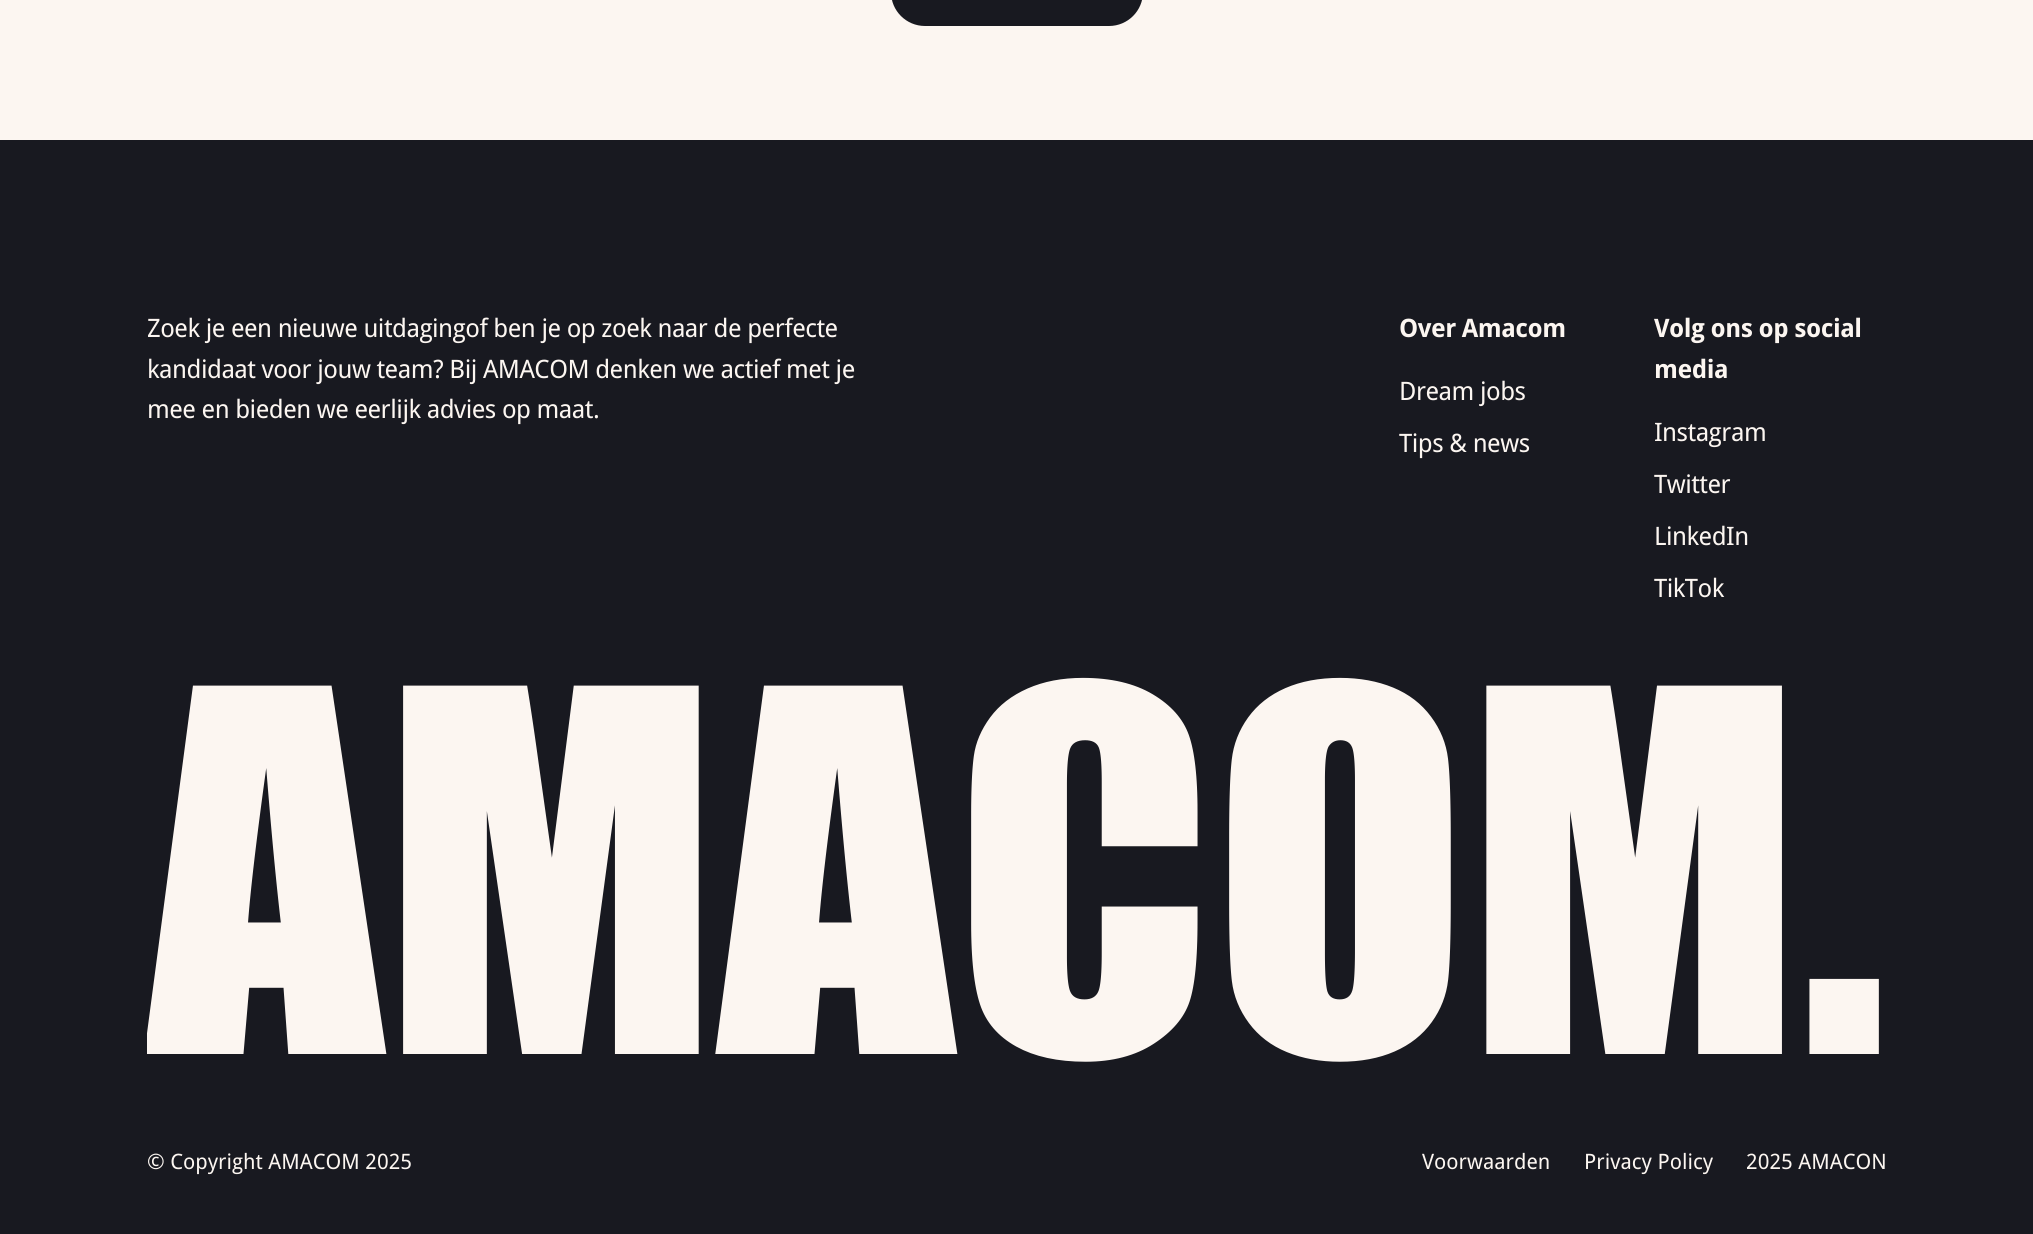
#include <cairo.h>
#include <math.h>
#include <stddef.h>

typedef struct { double x, y; const char *s; } line_t;

static void ink(cairo_t *ctx, unsigned color) {
    cairo_set_source_rgb(ctx, (color >> 16) / 255.0, (color >> 8 & 255) / 255.0, (color & 255) / 255.0);
}

static void write_spaced(cairo_t *ctx, double x, double y, const char *s, double letter, double word) {
    cairo_move_to(ctx, x, y);
    while (*s) {
        char ch[5] = {0};
        int n = 0;
        do ch[n++] = *s++; while ((*s & 0xC0) == 0x80);
        cairo_show_text(ctx, ch);
        cairo_rel_move_to(ctx, letter + word * (*ch == ' '), 0);
    }
}

static void round_path(cairo_t *ctx, double x, double y, double w, double h, double r) {
    cairo_new_sub_path(ctx);
    cairo_arc(ctx, x + w - r, y + h - r, r, 0, M_PI / 2);
    cairo_arc(ctx, x + r, y + h - r, r, M_PI / 2, M_PI);
    cairo_arc(ctx, x + r, y + r, r, M_PI, 1.5 * M_PI);
    cairo_arc(ctx, x + w - r, y + r, r, 1.5 * M_PI, 2 * M_PI);
    cairo_close_path(ctx);
}

int main(void) {
    cairo_surface_t *surface = cairo_image_surface_create(CAIRO_FORMAT_RGB24, 2033, 1234);
    cairo_t *ctx = cairo_create(surface);
    cairo_font_options_t *options = cairo_font_options_create();
    cairo_font_options_set_hint_metrics(options, CAIRO_HINT_METRICS_OFF);
    cairo_font_options_set_hint_style(options, CAIRO_HINT_STYLE_NONE);
    cairo_set_font_options(ctx, options);
    cairo_set_miter_limit(ctx, 4);
    ink(ctx, 0xFCF6F1);
    cairo_paint(ctx);
    ink(ctx, 0x181920);
    round_path(ctx, 891, -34, 252, 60, 34);
    cairo_fill(ctx);
    cairo_rectangle(ctx, 0, 140, 2033, 1094);
    cairo_fill(ctx);
    cairo_select_font_face(ctx, "Droid Sans", CAIRO_FONT_SLANT_NORMAL, CAIRO_FONT_WEIGHT_NORMAL);
    cairo_set_font_size(ctx, 25.4);
    ink(ctx, 0xFCF6F1);
    {
        static const line_t items[] = {
            {147, 337, "Zoek je een nieuwe uitdagingof ben je op zoek naar de perfecte"},
            {147, 378, "kandidaat voor jouw team? Bij AMACOM denken we actief met je"},
            {147, 418, "mee en bieden we eerlijk advies op maat."},
        };
        for (size_t i = 0; i < sizeof items / sizeof *items; i++) {
            write_spaced(ctx, items[i].x, items[i].y, items[i].s, -0.5, 0);
        }
    }
    cairo_select_font_face(ctx, "Droid Sans", CAIRO_FONT_SLANT_NORMAL, CAIRO_FONT_WEIGHT_BOLD);
    write_spaced(ctx, 1399, 337, "Over Amacom", -0.5, 0);
    cairo_select_font_face(ctx, "Droid Sans", CAIRO_FONT_SLANT_NORMAL, CAIRO_FONT_WEIGHT_NORMAL);
    write_spaced(ctx, 1399, 400, "Dream jobs", -0.5, 0);
    write_spaced(ctx, 1399, 452, "Tips & news", -0.5, 0);
    cairo_select_font_face(ctx, "Droid Sans", CAIRO_FONT_SLANT_NORMAL, CAIRO_FONT_WEIGHT_BOLD);
    write_spaced(ctx, 1654, 337, "Volg ons op social", -0.5, 0);
    write_spaced(ctx, 1654, 378, "media", -0.5, 0);
    cairo_select_font_face(ctx, "Droid Sans", CAIRO_FONT_SLANT_NORMAL, CAIRO_FONT_WEIGHT_NORMAL);
    {
        static const line_t items[] = {
            {1654, 441, "Instagram"},
            {1654, 493, "Twitter"},
            {1654, 545, "LinkedIn"},
            {1654, 597, "TikTok"},
        };
        for (size_t i = 0; i < sizeof items / sizeof *items; i++) {
            write_spaced(ctx, items[i].x, items[i].y, items[i].s, -0.5, 0);
        }
    }
    cairo_save(ctx);
    cairo_rectangle(ctx, 147, 667, 1740, 415);
    cairo_clip(ctx);
    cairo_select_font_face(ctx, "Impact", CAIRO_FONT_SLANT_NORMAL, CAIRO_FONT_WEIGHT_NORMAL);
    cairo_set_font_size(ctx, 466);
    cairo_move_to(ctx, 147, 1054);
    cairo_show_text(ctx, "A");
    cairo_restore(ctx);
    cairo_select_font_face(ctx, "Impact", CAIRO_FONT_SLANT_NORMAL, CAIRO_FONT_WEIGHT_NORMAL);
    cairo_set_font_size(ctx, 466);
    cairo_move_to(ctx, 384, 1054);
    cairo_show_text(ctx, "MACOM.");
    cairo_select_font_face(ctx, "Droid Sans", CAIRO_FONT_SLANT_NORMAL, CAIRO_FONT_WEIGHT_NORMAL);
    cairo_set_font_size(ctx, 21.25);
    {
        static const line_t items[] = {
            {147, 1169, "© Copyright AMACOM 2025"},
            {1422, 1169, "Voorwaarden"},
            {1584, 1169, "Privacy Policy"},
            {1746, 1169, "2025 AMACON"},
        };
        for (size_t i = 0; i < sizeof items / sizeof *items; i++) {
            cairo_move_to(ctx, items[i].x, items[i].y);
            cairo_show_text(ctx, items[i].s);
        }
    }
    cairo_surface_write_to_png(surface, "image.png");
    cairo_font_options_destroy(options);
    cairo_destroy(ctx);
    cairo_surface_destroy(surface);
    return 0;
}
